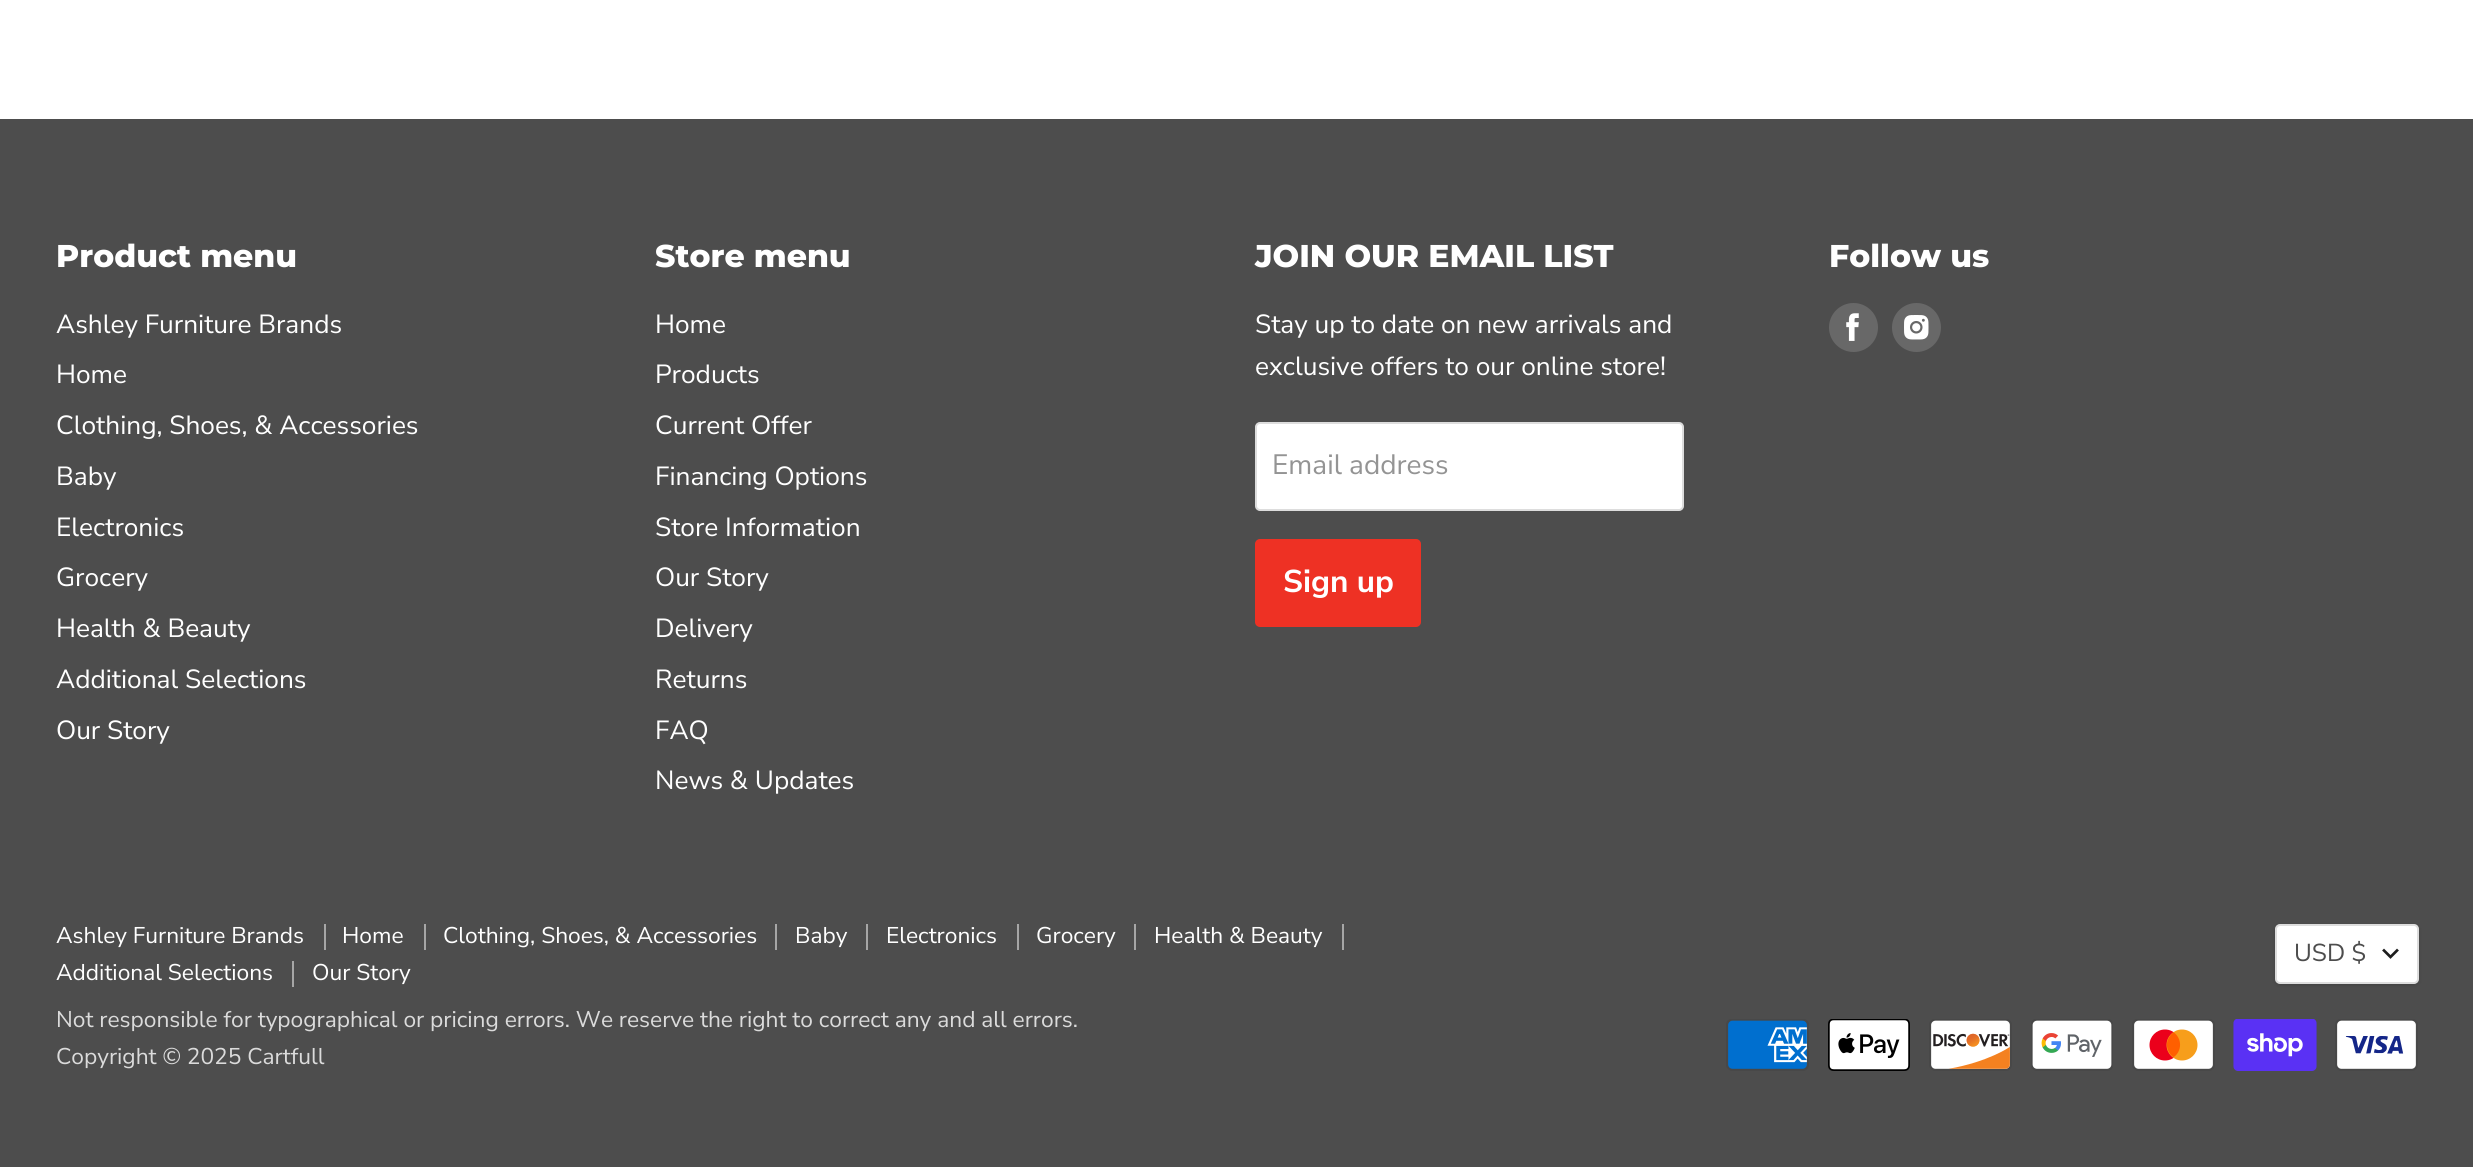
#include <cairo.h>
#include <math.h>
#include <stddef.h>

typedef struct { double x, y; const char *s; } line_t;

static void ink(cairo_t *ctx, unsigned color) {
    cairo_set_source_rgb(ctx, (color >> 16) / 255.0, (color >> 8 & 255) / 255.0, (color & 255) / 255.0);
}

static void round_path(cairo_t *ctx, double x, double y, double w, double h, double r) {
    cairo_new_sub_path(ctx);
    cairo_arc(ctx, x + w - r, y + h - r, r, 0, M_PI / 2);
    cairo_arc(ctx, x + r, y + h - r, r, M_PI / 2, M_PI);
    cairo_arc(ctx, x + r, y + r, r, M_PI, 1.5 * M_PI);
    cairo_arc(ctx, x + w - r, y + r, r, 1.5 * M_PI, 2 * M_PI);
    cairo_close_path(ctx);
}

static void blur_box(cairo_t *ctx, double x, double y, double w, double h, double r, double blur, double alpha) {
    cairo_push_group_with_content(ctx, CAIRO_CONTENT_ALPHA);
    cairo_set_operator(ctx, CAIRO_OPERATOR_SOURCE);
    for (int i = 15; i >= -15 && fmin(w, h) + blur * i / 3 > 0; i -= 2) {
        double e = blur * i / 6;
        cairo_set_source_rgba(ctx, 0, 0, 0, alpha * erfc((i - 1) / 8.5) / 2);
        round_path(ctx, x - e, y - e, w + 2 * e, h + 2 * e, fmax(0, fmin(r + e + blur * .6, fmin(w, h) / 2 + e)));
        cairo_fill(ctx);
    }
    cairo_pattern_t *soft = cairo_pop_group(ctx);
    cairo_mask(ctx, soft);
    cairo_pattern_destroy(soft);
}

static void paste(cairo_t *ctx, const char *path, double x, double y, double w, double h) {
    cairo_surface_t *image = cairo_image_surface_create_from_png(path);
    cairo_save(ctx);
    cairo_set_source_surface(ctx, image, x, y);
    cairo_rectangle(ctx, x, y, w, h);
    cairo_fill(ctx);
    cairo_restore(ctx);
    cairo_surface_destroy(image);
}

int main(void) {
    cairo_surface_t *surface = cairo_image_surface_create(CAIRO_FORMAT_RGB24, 2473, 1167);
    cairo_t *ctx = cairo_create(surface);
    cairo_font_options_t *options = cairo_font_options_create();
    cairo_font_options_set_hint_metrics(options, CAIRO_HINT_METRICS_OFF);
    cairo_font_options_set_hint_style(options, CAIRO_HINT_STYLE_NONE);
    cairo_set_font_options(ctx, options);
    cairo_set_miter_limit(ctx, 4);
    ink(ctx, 0xFFFFFF);
    cairo_paint(ctx);
    ink(ctx, 0x4D4D4D);
    cairo_rectangle(ctx, 0, 119, 2473, 1048);
    cairo_fill(ctx);
    cairo_select_font_face(ctx, "Montserrat ExtraBold", CAIRO_FONT_SLANT_NORMAL, CAIRO_FONT_WEIGHT_NORMAL);
    cairo_set_font_size(ctx, 31.5);
    ink(ctx, 0xFFFFFF);
    cairo_move_to(ctx, 56, 267);
    cairo_show_text(ctx, "Product menu");
    cairo_select_font_face(ctx, "Nunito Sans", CAIRO_FONT_SLANT_NORMAL, CAIRO_FONT_WEIGHT_NORMAL);
    cairo_set_font_size(ctx, 26.25);
    {
        static const line_t items[] = {
            {56, 333, "Ashley Furniture Brands"},
            {56, 383, "Home"},
            {56, 434, "Clothing, Shoes, & Accessories"},
            {56, 485, "Baby"},
            {56, 536, "Electronics"},
            {56, 586, "Grocery"},
            {56, 637, "Health & Beauty"},
            {56, 688, "Additional Selections"},
            {56, 739, "Our Story"},
        };
        for (size_t i = 0; i < sizeof items / sizeof *items; i++) {
            cairo_move_to(ctx, items[i].x, items[i].y);
            cairo_show_text(ctx, items[i].s);
        }
    }
    cairo_select_font_face(ctx, "Montserrat ExtraBold", CAIRO_FONT_SLANT_NORMAL, CAIRO_FONT_WEIGHT_NORMAL);
    cairo_set_font_size(ctx, 31.5);
    cairo_move_to(ctx, 655, 267);
    cairo_show_text(ctx, "Store menu");
    cairo_select_font_face(ctx, "Nunito Sans", CAIRO_FONT_SLANT_NORMAL, CAIRO_FONT_WEIGHT_NORMAL);
    cairo_set_font_size(ctx, 26.25);
    {
        static const line_t items[] = {
            {655, 333, "Home"},
            {655, 383, "Products"},
            {655, 434, "Current Offer"},
            {655, 485, "Financing Options"},
            {655, 536, "Store Information"},
            {655, 586, "Our Story"},
            {655, 637, "Delivery"},
            {655, 688, "Returns"},
            {655, 739, "FAQ"},
            {655, 789, "News & Updates"},
        };
        for (size_t i = 0; i < sizeof items / sizeof *items; i++) {
            cairo_move_to(ctx, items[i].x, items[i].y);
            cairo_show_text(ctx, items[i].s);
        }
    }
    cairo_select_font_face(ctx, "Montserrat ExtraBold", CAIRO_FONT_SLANT_NORMAL, CAIRO_FONT_WEIGHT_NORMAL);
    cairo_set_font_size(ctx, 31.5);
    cairo_move_to(ctx, 1255, 267);
    cairo_show_text(ctx, "JOIN OUR EMAIL LIST");
    cairo_select_font_face(ctx, "Nunito Sans", CAIRO_FONT_SLANT_NORMAL, CAIRO_FONT_WEIGHT_NORMAL);
    cairo_set_font_size(ctx, 26.25);
    cairo_move_to(ctx, 1255, 333);
    cairo_show_text(ctx, "Stay up to date on new arrivals and");
    cairo_move_to(ctx, 1255, 375);
    cairo_show_text(ctx, "exclusive offers to our online store!");
    round_path(ctx, 1256, 423, 427, 87, 4);
    cairo_fill_preserve(ctx);
    ink(ctx, 0xDDDDDD);
    cairo_stroke(ctx);
    cairo_set_font_size(ctx, 28);
    ink(ctx, 0x949494);
    cairo_move_to(ctx, 1272, 474);
    cairo_show_text(ctx, "Email address");
    ink(ctx, 0xEE3124);
    round_path(ctx, 1256, 540, 164, 86, 4);
    cairo_fill_preserve(ctx);
    cairo_stroke(ctx);
    cairo_select_font_face(ctx, "Nunito Sans", CAIRO_FONT_SLANT_NORMAL, CAIRO_FONT_WEIGHT_BOLD);
    cairo_set_font_size(ctx, 31.5);
    ink(ctx, 0xFFFFFF);
    cairo_move_to(ctx, 1283, 592);
    cairo_show_text(ctx, "Sign up");
    cairo_select_font_face(ctx, "Montserrat ExtraBold", CAIRO_FONT_SLANT_NORMAL, CAIRO_FONT_WEIGHT_NORMAL);
    cairo_move_to(ctx, 1829, 267);
    cairo_show_text(ctx, "Follow us");
    ink(ctx, 0x686868);
    cairo_new_path(ctx);
    cairo_arc(ctx, 1853.5, 327.5, 24.5, 0, 2 * M_PI);
    cairo_fill(ctx);
    paste(ctx, "media/1.png", 1846, 313, 13, 28);
    cairo_arc(ctx, 1916.5, 327.5, 24.5, 0, 2 * M_PI);
    cairo_fill(ctx);
    paste(ctx, "media/2.png", 1904, 315, 25, 25);
    ink(ctx, 0xA6A6A6);
    cairo_rectangle(ctx, 324, 924, 2, 26);
    cairo_fill(ctx);
    cairo_select_font_face(ctx, "Nunito Sans", CAIRO_FONT_SLANT_NORMAL, CAIRO_FONT_WEIGHT_NORMAL);
    cairo_set_font_size(ctx, 22.75);
    ink(ctx, 0xFFFFFF);
    cairo_move_to(ctx, 56, 943);
    cairo_show_text(ctx, "Ashley Furniture Brands");
    ink(ctx, 0xA6A6A6);
    cairo_rectangle(ctx, 424, 924, 2, 26);
    cairo_fill(ctx);
    ink(ctx, 0xFFFFFF);
    cairo_move_to(ctx, 342, 943);
    cairo_show_text(ctx, "Home");
    ink(ctx, 0xA6A6A6);
    cairo_rectangle(ctx, 775, 924, 2, 26);
    cairo_fill(ctx);
    ink(ctx, 0xFFFFFF);
    cairo_move_to(ctx, 443, 943);
    cairo_show_text(ctx, "Clothing, Shoes, & Accessories");
    ink(ctx, 0xA6A6A6);
    cairo_rectangle(ctx, 866, 924, 2, 26);
    cairo_fill(ctx);
    ink(ctx, 0xFFFFFF);
    cairo_move_to(ctx, 795, 943);
    cairo_show_text(ctx, "Baby");
    ink(ctx, 0xA6A6A6);
    cairo_rectangle(ctx, 1017, 924, 2, 26);
    cairo_fill(ctx);
    ink(ctx, 0xFFFFFF);
    cairo_move_to(ctx, 886, 943);
    cairo_show_text(ctx, "Electronics");
    ink(ctx, 0xA6A6A6);
    cairo_rectangle(ctx, 1134, 924, 2, 26);
    cairo_fill(ctx);
    ink(ctx, 0xFFFFFF);
    cairo_move_to(ctx, 1036, 943);
    cairo_show_text(ctx, "Grocery");
    ink(ctx, 0xA6A6A6);
    cairo_rectangle(ctx, 1342, 924, 2, 26);
    cairo_fill(ctx);
    ink(ctx, 0xFFFFFF);
    cairo_move_to(ctx, 1154, 943);
    cairo_show_text(ctx, "Health & Beauty");
    ink(ctx, 0xA6A6A6);
    cairo_rectangle(ctx, 292, 961, 2, 26);
    cairo_fill(ctx);
    ink(ctx, 0xFFFFFF);
    cairo_move_to(ctx, 56, 980);
    cairo_show_text(ctx, "Additional Selections");
    cairo_move_to(ctx, 312, 980);
    cairo_show_text(ctx, "Our Story");
    ink(ctx, 0xDBDBDB);
    cairo_move_to(ctx, 56, 1027);
    cairo_show_text(ctx, "Not responsible for typographical or pricing errors. We reserve the right to correct any and all errors.");
    cairo_move_to(ctx, 56, 1064);
    cairo_show_text(ctx, "Copyright © 2025 Cartfull");
    ink(ctx, 0x000000);
    blur_box(ctx, 2275, 926, 144, 59, 5, 2, 0.15);
    ink(ctx, 0xFFFFFF);
    round_path(ctx, 2276, 925, 142, 58, 4);
    cairo_fill_preserve(ctx);
    ink(ctx, 0xDDDDDD);
    cairo_stroke(ctx);
    cairo_set_font_size(ctx, 24.5);
    ink(ctx, 0x4D4D4D);
    cairo_move_to(ctx, 2294, 961);
    cairo_show_text(ctx, "USD $");
    cairo_new_path(ctx);
    cairo_move_to(ctx, 2390.5, 957);
    cairo_line_to(ctx, 2397, 950.5);
    cairo_move_to(ctx, 2390.5, 957);
    cairo_line_to(ctx, 2384, 950.5);
    ink(ctx, 0x1D1D1D);
    cairo_set_line_width(ctx, 2.7);
    cairo_set_line_cap(ctx, CAIRO_LINE_CAP_SQUARE);
    cairo_stroke(ctx);
    paste(ctx, "media/3.png", 1726, 1019, 83, 52);
    paste(ctx, "media/4.png", 1828, 1019, 82, 52);
    paste(ctx, "media/5.png", 1929, 1019, 83, 52);
    paste(ctx, "media/6.png", 2031, 1019, 82, 52);
    paste(ctx, "media/7.png", 2132, 1019, 83, 52);
    paste(ctx, "media/8.png", 2233, 1019, 84, 52);
    paste(ctx, "media/9.png", 2335, 1019, 83, 52);
    cairo_surface_write_to_png(surface, "image.png");
    cairo_font_options_destroy(options);
    cairo_destroy(ctx);
    cairo_surface_destroy(surface);
    return 0;
}
